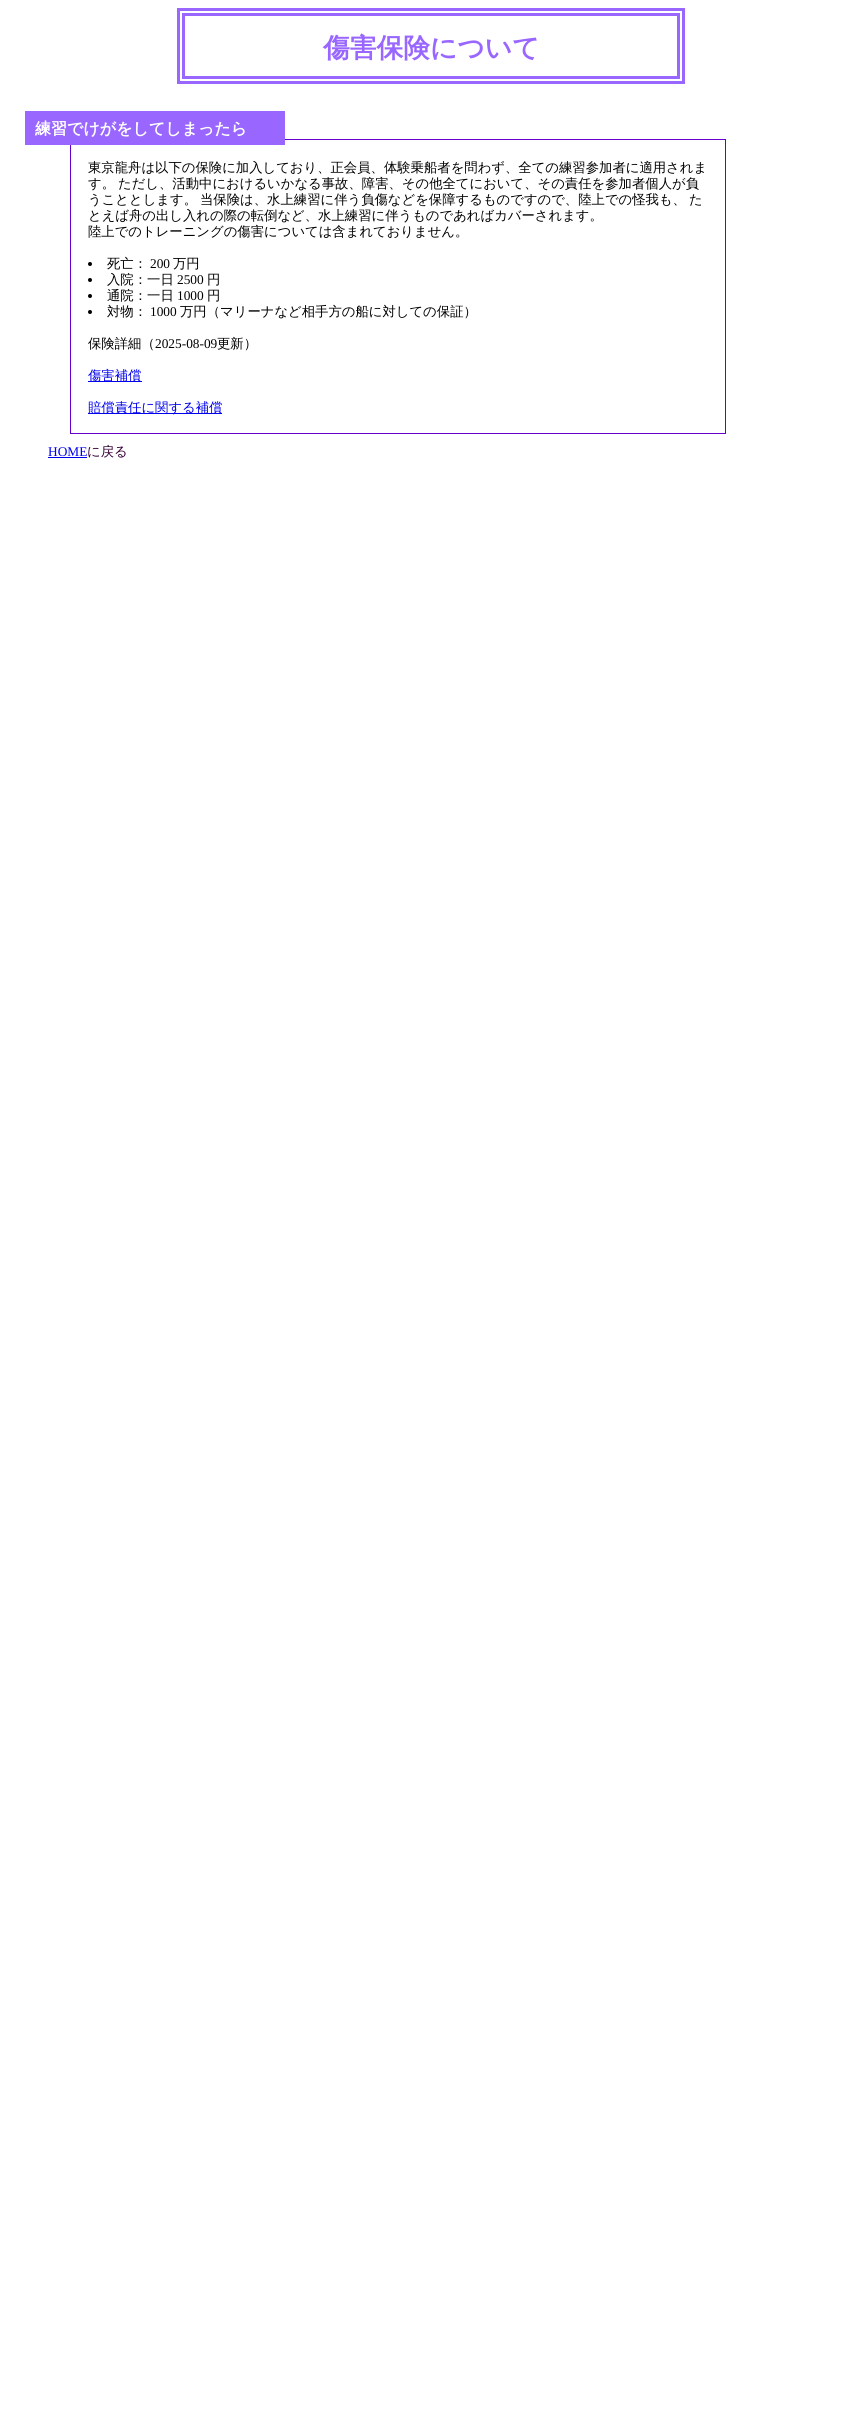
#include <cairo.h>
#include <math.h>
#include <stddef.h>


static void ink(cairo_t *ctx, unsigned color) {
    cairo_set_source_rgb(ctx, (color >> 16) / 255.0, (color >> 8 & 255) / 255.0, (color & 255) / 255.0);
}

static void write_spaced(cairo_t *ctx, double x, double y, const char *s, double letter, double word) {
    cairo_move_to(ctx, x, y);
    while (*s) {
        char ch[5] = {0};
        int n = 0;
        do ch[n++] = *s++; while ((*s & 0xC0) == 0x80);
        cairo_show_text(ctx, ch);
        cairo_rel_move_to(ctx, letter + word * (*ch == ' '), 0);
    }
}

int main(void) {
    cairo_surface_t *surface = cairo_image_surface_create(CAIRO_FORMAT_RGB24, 862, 2415);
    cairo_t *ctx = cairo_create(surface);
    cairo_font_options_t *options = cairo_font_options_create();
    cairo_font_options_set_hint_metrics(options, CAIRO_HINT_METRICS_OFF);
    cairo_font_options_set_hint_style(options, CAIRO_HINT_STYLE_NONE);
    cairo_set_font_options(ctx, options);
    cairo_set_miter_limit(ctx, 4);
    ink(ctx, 0xFFFFFF);
    cairo_paint(ctx);
    cairo_rectangle(ctx, 178.5, 9.5, 505, 73);
    ink(ctx, 0x9966FF);
    cairo_set_line_width(ctx, 3);
    cairo_stroke(ctx);
    cairo_rectangle(ctx, 183.5, 14.5, 495, 63);
    cairo_stroke(ctx);
    cairo_select_font_face(ctx, "WenQuanYi Zen Hei", CAIRO_FONT_SLANT_NORMAL, CAIRO_FONT_WEIGHT_BOLD);
    cairo_set_font_size(ctx, 26.75);
    cairo_move_to(ctx, 323, 57);
    cairo_show_text(ctx, "傷害保険について");
    cairo_rectangle(ctx, 70.5, 139.5, 655, 294);
    ink(ctx, 0x6600CC);
    cairo_set_line_width(ctx, 1);
    cairo_stroke(ctx);
    ink(ctx, 0x9966FF);
    cairo_rectangle(ctx, 25, 111, 260, 34);
    cairo_fill(ctx);
    cairo_set_font_size(ctx, 16);
    ink(ctx, 0xFFFFFF);
    cairo_move_to(ctx, 35, 134);
    cairo_show_text(ctx, "練習でけがをしてしまったら");
    cairo_select_font_face(ctx, "WenQuanYi Zen Hei Medium", CAIRO_FONT_SLANT_NORMAL, CAIRO_FONT_WEIGHT_NORMAL);
    cairo_set_font_size(ctx, 13.35);
    ink(ctx, 0x000000);
    cairo_move_to(ctx, 88, 172);
    cairo_show_text(ctx, "東京龍舟は以下の保険に加入しており、正会員、体験乗船者を問わず、全ての練習参加者に適用されま");
    write_spaced(ctx, 88, 188, "す。 ただし、活動中におけるいかなる事故、障害、その他全てにおいて、その責任を参加者個人が負", 0, -1);
    write_spaced(ctx, 88, 204, "うこととします。 当保険は、水上練習に伴う負傷などを保障するものですので、陸上での怪我も、 た", 0, -1);
    cairo_move_to(ctx, 88, 220);
    cairo_show_text(ctx, "とえば舟の出し入れの際の転倒など、水上練習に伴うものであればカバーされます。");
    cairo_move_to(ctx, 88, 236);
    cairo_show_text(ctx, "陸上でのトレーニングの傷害については含まれておりません。");
    cairo_new_path(ctx);
    cairo_arc(ctx, 90, 264, 2, 0, 2 * M_PI);
    cairo_fill(ctx);
    cairo_move_to(ctx, 107, 268);
    cairo_show_text(ctx, "死亡：");
    cairo_select_font_face(ctx, "Liberation Serif", CAIRO_FONT_SLANT_NORMAL, CAIRO_FONT_WEIGHT_NORMAL);
    cairo_move_to(ctx, 150, 268);
    cairo_show_text(ctx, "200");
    cairo_select_font_face(ctx, "WenQuanYi Zen Hei Medium", CAIRO_FONT_SLANT_NORMAL, CAIRO_FONT_WEIGHT_NORMAL);
    cairo_move_to(ctx, 173, 268);
    cairo_show_text(ctx, "万円");
    cairo_new_path(ctx);
    cairo_arc(ctx, 90, 280, 2, 0, 2 * M_PI);
    cairo_fill(ctx);
    cairo_move_to(ctx, 107, 284);
    cairo_show_text(ctx, "入院：一日");
    cairo_select_font_face(ctx, "Liberation Serif", CAIRO_FONT_SLANT_NORMAL, CAIRO_FONT_WEIGHT_NORMAL);
    cairo_move_to(ctx, 177, 284);
    cairo_show_text(ctx, "2500");
    cairo_select_font_face(ctx, "WenQuanYi Zen Hei Medium", CAIRO_FONT_SLANT_NORMAL, CAIRO_FONT_WEIGHT_NORMAL);
    cairo_move_to(ctx, 207, 284);
    cairo_show_text(ctx, "円");
    cairo_new_path(ctx);
    cairo_arc(ctx, 90, 296, 2, 0, 2 * M_PI);
    cairo_fill(ctx);
    cairo_move_to(ctx, 107, 300);
    cairo_show_text(ctx, "通院：一日");
    cairo_select_font_face(ctx, "Liberation Serif", CAIRO_FONT_SLANT_NORMAL, CAIRO_FONT_WEIGHT_NORMAL);
    cairo_move_to(ctx, 177, 300);
    cairo_show_text(ctx, "1000");
    cairo_select_font_face(ctx, "WenQuanYi Zen Hei Medium", CAIRO_FONT_SLANT_NORMAL, CAIRO_FONT_WEIGHT_NORMAL);
    cairo_move_to(ctx, 207, 300);
    cairo_show_text(ctx, "円");
    cairo_new_path(ctx);
    cairo_arc(ctx, 90, 312, 2, 0, 2 * M_PI);
    cairo_fill(ctx);
    cairo_move_to(ctx, 107, 316);
    cairo_show_text(ctx, "対物：");
    cairo_select_font_face(ctx, "Liberation Serif", CAIRO_FONT_SLANT_NORMAL, CAIRO_FONT_WEIGHT_NORMAL);
    cairo_move_to(ctx, 150, 316);
    cairo_show_text(ctx, "1000");
    cairo_select_font_face(ctx, "WenQuanYi Zen Hei Medium", CAIRO_FONT_SLANT_NORMAL, CAIRO_FONT_WEIGHT_NORMAL);
    cairo_move_to(ctx, 180, 316);
    cairo_show_text(ctx, "万円（マリーナなど相手方の船に対しての保証）");
    cairo_move_to(ctx, 88, 348);
    cairo_show_text(ctx, "保険詳細（");
    cairo_select_font_face(ctx, "Liberation Serif", CAIRO_FONT_SLANT_NORMAL, CAIRO_FONT_WEIGHT_NORMAL);
    cairo_move_to(ctx, 155, 348);
    cairo_show_text(ctx, "2025-08-09");
    cairo_select_font_face(ctx, "WenQuanYi Zen Hei Medium", CAIRO_FONT_SLANT_NORMAL, CAIRO_FONT_WEIGHT_NORMAL);
    cairo_move_to(ctx, 217, 348);
    cairo_show_text(ctx, "更新）");
    ink(ctx, 0x0000EE);
    cairo_rectangle(ctx, 88, 381, 54, 1);
    cairo_fill(ctx);
    cairo_move_to(ctx, 88, 380);
    cairo_show_text(ctx, "傷害補償");
    cairo_rectangle(ctx, 88, 413, 134, 1);
    cairo_fill(ctx);
    cairo_move_to(ctx, 88, 412);
    cairo_show_text(ctx, "賠償責任に関する補償");
    cairo_select_font_face(ctx, "Liberation Serif", CAIRO_FONT_SLANT_NORMAL, CAIRO_FONT_WEIGHT_NORMAL);
    cairo_move_to(ctx, 48, 456);
    cairo_show_text(ctx, "HOME");
    cairo_rectangle(ctx, 48, 457, 39, 1);
    cairo_fill(ctx);
    cairo_select_font_face(ctx, "WenQuanYi Zen Hei Medium", CAIRO_FONT_SLANT_NORMAL, CAIRO_FONT_WEIGHT_NORMAL);
    ink(ctx, 0x330033);
    cairo_move_to(ctx, 87, 456);
    cairo_show_text(ctx, "に戻る");
    cairo_surface_write_to_png(surface, "image.png");
    cairo_font_options_destroy(options);
    cairo_destroy(ctx);
    cairo_surface_destroy(surface);
    return 0;
}
